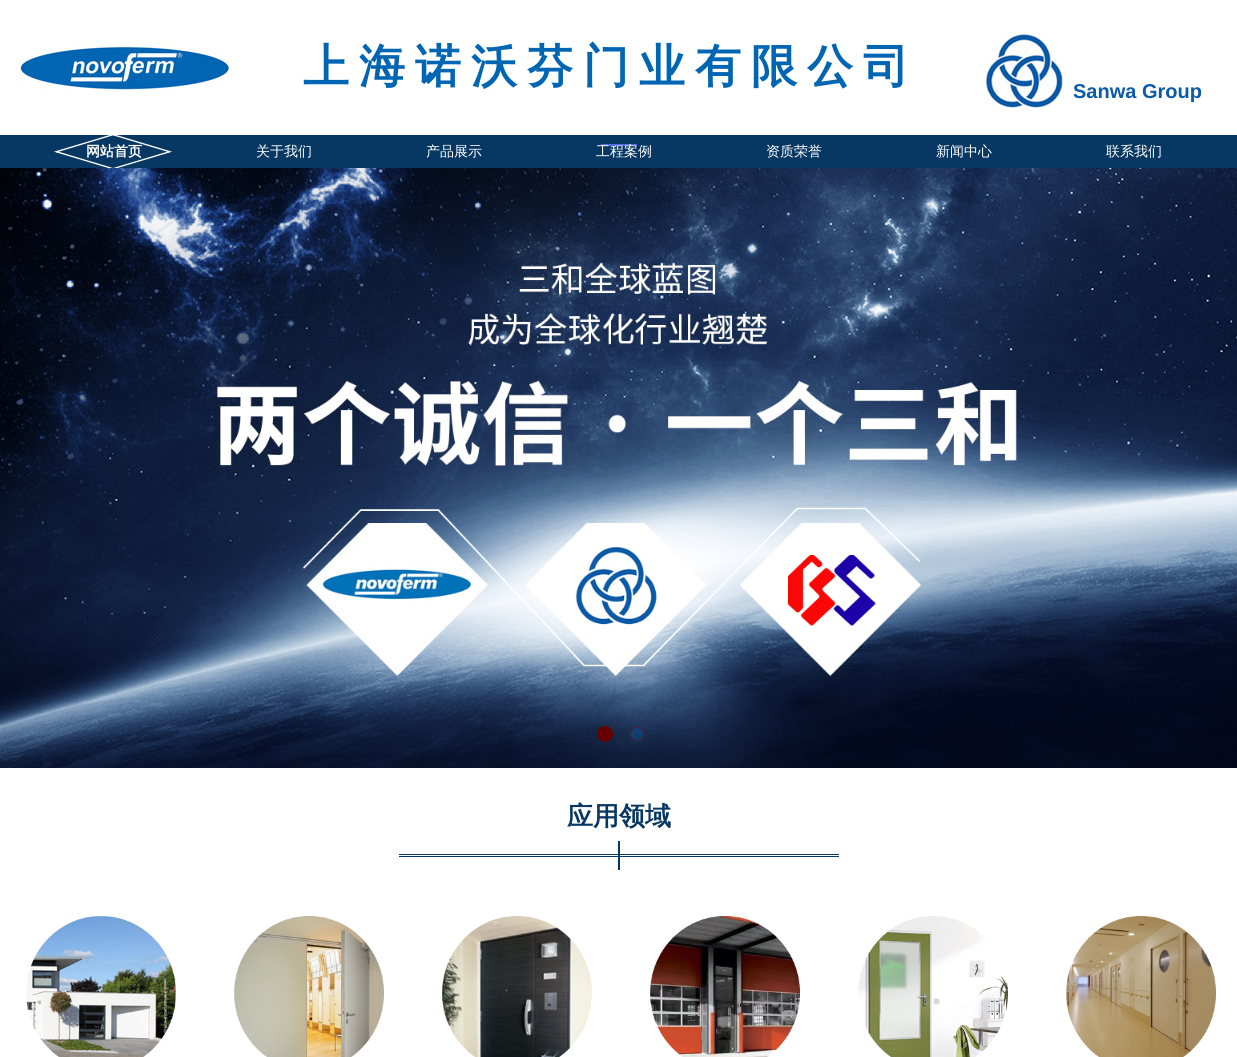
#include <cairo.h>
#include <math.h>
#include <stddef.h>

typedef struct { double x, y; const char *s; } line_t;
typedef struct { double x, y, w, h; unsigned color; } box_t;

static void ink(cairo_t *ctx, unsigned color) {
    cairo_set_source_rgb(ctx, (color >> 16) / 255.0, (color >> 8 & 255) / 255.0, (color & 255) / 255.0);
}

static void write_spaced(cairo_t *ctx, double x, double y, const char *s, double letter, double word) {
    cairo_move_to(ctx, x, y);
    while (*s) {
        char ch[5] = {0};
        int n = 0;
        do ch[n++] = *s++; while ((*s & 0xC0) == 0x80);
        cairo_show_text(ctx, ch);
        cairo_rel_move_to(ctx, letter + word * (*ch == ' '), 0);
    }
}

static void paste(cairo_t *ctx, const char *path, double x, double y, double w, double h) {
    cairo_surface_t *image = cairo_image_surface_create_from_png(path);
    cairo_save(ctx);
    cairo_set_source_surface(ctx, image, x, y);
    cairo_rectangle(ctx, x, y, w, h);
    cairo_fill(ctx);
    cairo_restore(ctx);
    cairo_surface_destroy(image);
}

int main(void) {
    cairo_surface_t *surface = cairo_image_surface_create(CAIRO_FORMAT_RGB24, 1237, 1057);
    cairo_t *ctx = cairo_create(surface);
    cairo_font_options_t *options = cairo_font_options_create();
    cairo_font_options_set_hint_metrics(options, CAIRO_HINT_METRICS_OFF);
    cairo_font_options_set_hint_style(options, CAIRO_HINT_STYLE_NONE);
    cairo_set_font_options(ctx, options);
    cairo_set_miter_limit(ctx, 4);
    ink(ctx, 0xFFFFFF);
    cairo_paint(ctx);
    paste(ctx, "media/1.png", 19, 42, 211, 48);
    cairo_select_font_face(ctx, "WenQuanYi Zen Hei", CAIRO_FONT_SLANT_NORMAL, CAIRO_FONT_WEIGHT_BOLD);
    cairo_set_font_size(ctx, 46);
    ink(ctx, 0x0065B3);
    write_spaced(ctx, 303, 82, "上海诺沃芬门业有限公司", 10, 0);
    paste(ctx, "media/2.png", 981, 34, 87, 75);
    cairo_select_font_face(ctx, "Liberation Sans", CAIRO_FONT_SLANT_NORMAL, CAIRO_FONT_WEIGHT_BOLD);
    cairo_set_font_size(ctx, 20);
    ink(ctx, 0x095AA9);
    cairo_move_to(ctx, 1073, 98);
    cairo_show_text(ctx, "Sanwa Group");
    ink(ctx, 0x073763);
    cairo_rectangle(ctx, 0, 135, 1237, 33);
    cairo_fill(ctx);
    paste(ctx, "media/3.png", 54, 135, 118, 33);
    cairo_select_font_face(ctx, "WenQuanYi Zen Hei", CAIRO_FONT_SLANT_NORMAL, CAIRO_FONT_WEIGHT_BOLD);
    cairo_set_font_size(ctx, 14);
    ink(ctx, 0xFFFFFF);
    cairo_move_to(ctx, 86, 156);
    cairo_show_text(ctx, "网站首页");
    cairo_select_font_face(ctx, "WenQuanYi Zen Hei Medium", CAIRO_FONT_SLANT_NORMAL, CAIRO_FONT_WEIGHT_NORMAL);
    cairo_move_to(ctx, 256, 156);
    cairo_show_text(ctx, "关于我们");
    cairo_move_to(ctx, 426, 156);
    cairo_show_text(ctx, "产品展示");
    ink(ctx, 0x556EDE);
    cairo_rectangle(ctx, 601, 144, 36, 2);
    cairo_fill(ctx);
    ink(ctx, 0xFFFFFF);
    {
        static const line_t items[] = {
            {596, 156, "工程案例"},
            {766, 156, "资质荣誉"},
            {936, 156, "新闻中心"},
            {1106, 156, "联系我们"},
        };
        for (size_t i = 0; i < sizeof items / sizeof *items; i++) {
            cairo_move_to(ctx, items[i].x, items[i].y);
            cairo_show_text(ctx, items[i].s);
        }
    }
    paste(ctx, "media/4.png", 0, 168, 1237, 600);
    ink(ctx, 0x660000);
    cairo_arc(ctx, 605, 734, 7, 0, 2 * M_PI);
    cairo_fill_preserve(ctx);
    cairo_stroke(ctx);
    cairo_set_source_rgba(ctx, 0.035, 0.353, 0.663, 0.4);
    cairo_arc(ctx, 637, 734, 8, 0, 2 * M_PI);
    cairo_fill(ctx);
    cairo_arc(ctx, 637, 734, 7, 0, 2 * M_PI);
    cairo_set_source_rgba(ctx, 0.4, 0, 0, 0.4);
    cairo_stroke(ctx);
    cairo_select_font_face(ctx, "WenQuanYi Zen Hei", CAIRO_FONT_SLANT_NORMAL, CAIRO_FONT_WEIGHT_BOLD);
    cairo_set_font_size(ctx, 26);
    ink(ctx, 0x073763);
    cairo_move_to(ctx, 567, 825);
    cairo_show_text(ctx, "应用领域");
    {
        static const box_t items[] = {
            {399, 854, 440, 1, 0x073763},
            {399, 856, 440, 1, 0x073763},
            {618, 841, 2, 29, 0x073763},
        };
        for (size_t i = 0; i < sizeof items / sizeof *items; i++) {
            ink(ctx, items[i].color);
            cairo_rectangle(ctx, items[i].x, items[i].y, items[i].w, items[i].h);
            cairo_fill(ctx);
        }
    }
    paste(ctx, "media/5.png", 26, 916, 150, 141);
    paste(ctx, "media/6.png", 234, 916, 150, 141);
    paste(ctx, "media/7.png", 442, 916, 150, 141);
    paste(ctx, "media/8.png", 650, 916, 150, 141);
    paste(ctx, "media/9.png", 858, 916, 150, 141);
    paste(ctx, "media/10.png", 1066, 916, 150, 141);
    cairo_surface_write_to_png(surface, "image.png");
    cairo_font_options_destroy(options);
    cairo_destroy(ctx);
    cairo_surface_destroy(surface);
    return 0;
}
